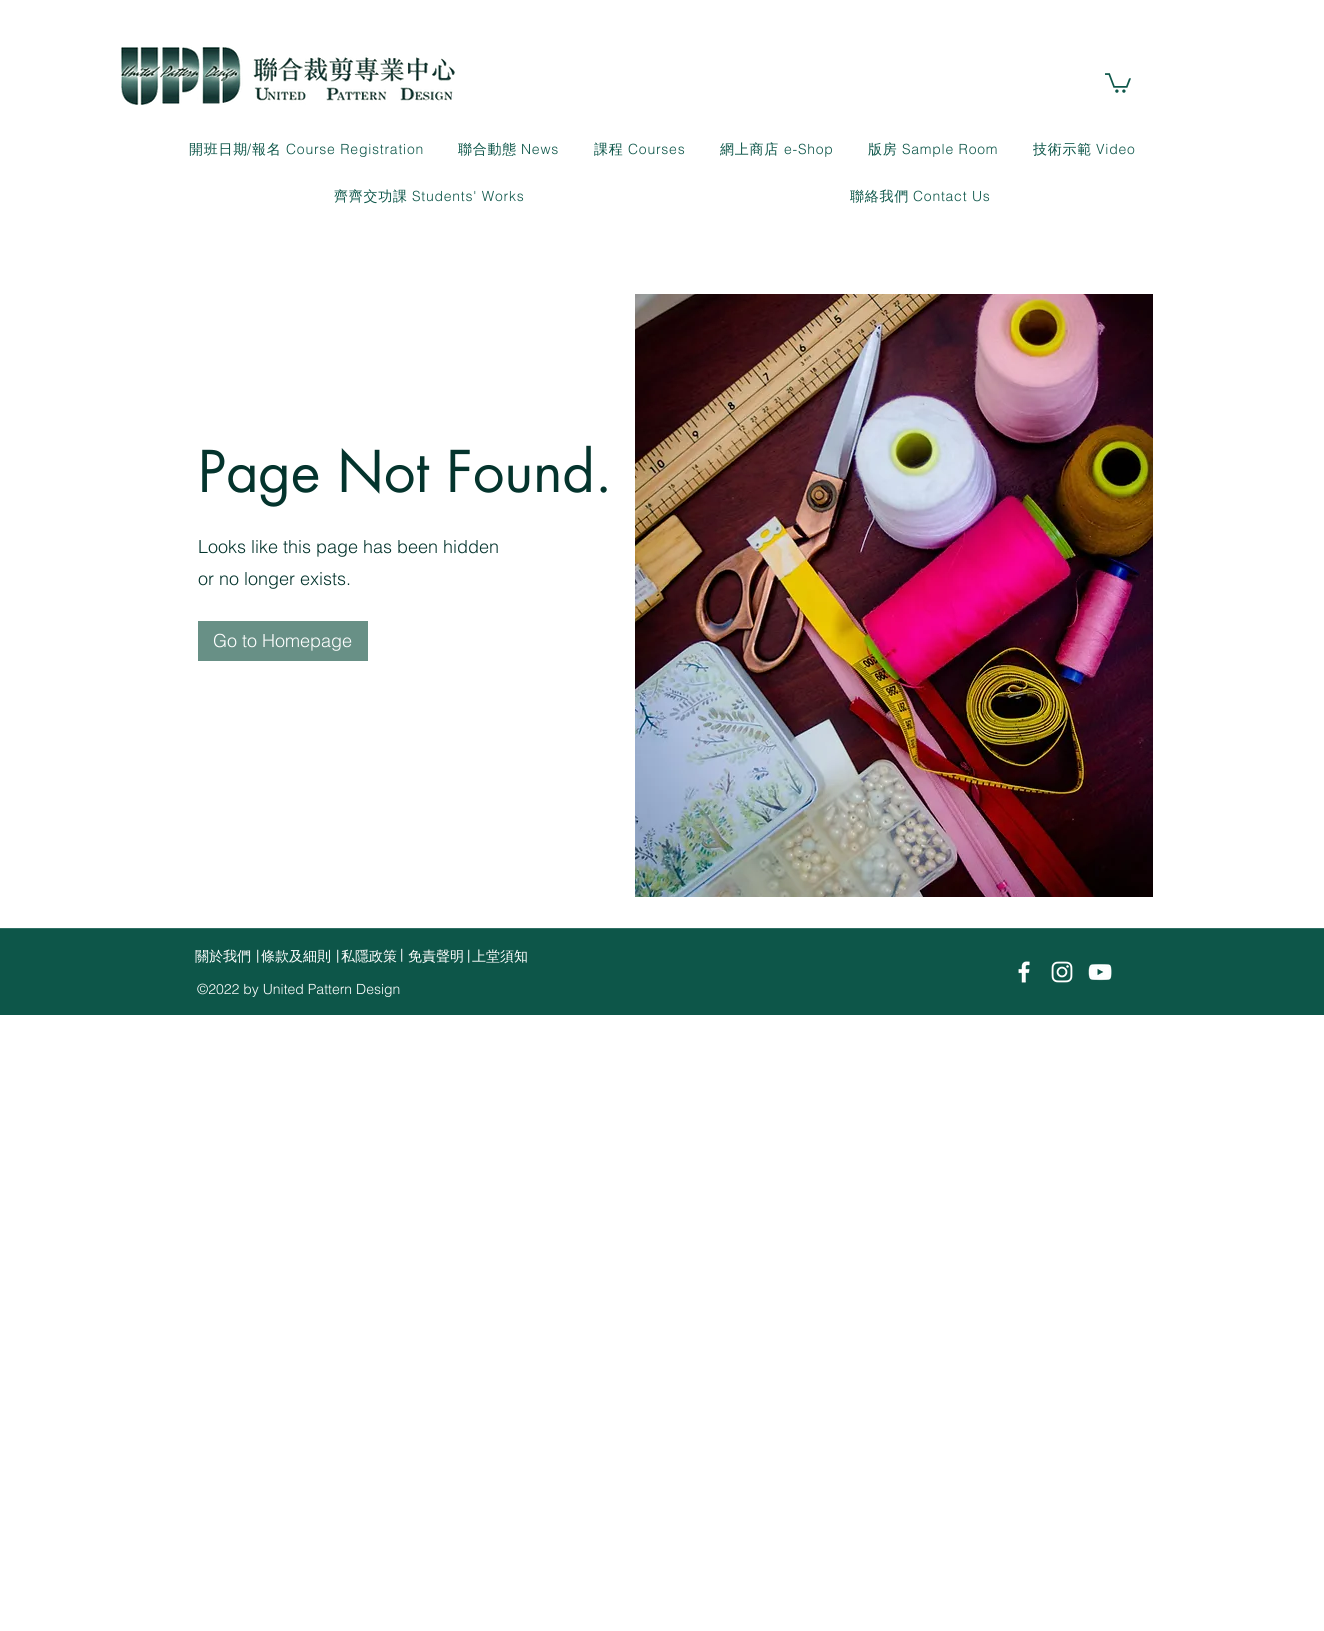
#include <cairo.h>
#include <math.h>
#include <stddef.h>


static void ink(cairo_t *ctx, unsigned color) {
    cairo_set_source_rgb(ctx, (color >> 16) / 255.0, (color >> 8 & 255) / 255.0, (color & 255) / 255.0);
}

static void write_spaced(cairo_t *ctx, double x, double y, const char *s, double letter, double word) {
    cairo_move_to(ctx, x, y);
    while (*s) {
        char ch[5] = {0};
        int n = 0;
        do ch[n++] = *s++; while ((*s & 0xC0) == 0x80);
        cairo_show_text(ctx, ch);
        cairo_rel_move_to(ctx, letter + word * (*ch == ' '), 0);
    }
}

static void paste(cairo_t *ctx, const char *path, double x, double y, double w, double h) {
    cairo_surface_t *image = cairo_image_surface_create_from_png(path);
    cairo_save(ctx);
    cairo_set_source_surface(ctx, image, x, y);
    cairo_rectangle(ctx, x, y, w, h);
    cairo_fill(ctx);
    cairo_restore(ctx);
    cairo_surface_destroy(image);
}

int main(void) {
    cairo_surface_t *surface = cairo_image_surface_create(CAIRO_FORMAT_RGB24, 1324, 1631);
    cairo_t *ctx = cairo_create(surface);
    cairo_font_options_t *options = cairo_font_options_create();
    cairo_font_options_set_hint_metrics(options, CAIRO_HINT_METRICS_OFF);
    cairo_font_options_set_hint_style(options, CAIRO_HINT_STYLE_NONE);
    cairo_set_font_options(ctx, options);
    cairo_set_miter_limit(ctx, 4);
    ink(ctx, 0xFFFFFF);
    cairo_paint(ctx);
    paste(ctx, "media/1.png", 121, 47, 334, 58);
    paste(ctx, "media/2.png", 1105, 73, 26, 20);
    cairo_select_font_face(ctx, "WenQuanYi Zen Hei Medium", CAIRO_FONT_SLANT_NORMAL, CAIRO_FONT_WEIGHT_NORMAL);
    cairo_set_font_size(ctx, 14);
    ink(ctx, 0x0D5649);
    write_spaced(ctx, 189, 154, "開班日期", 0.75, 0);
    cairo_select_font_face(ctx, "helvetica Light", CAIRO_FONT_SLANT_NORMAL, CAIRO_FONT_WEIGHT_NORMAL);
    write_spaced(ctx, 247, 154, "/", 0.75, 0);
    cairo_select_font_face(ctx, "WenQuanYi Zen Hei Medium", CAIRO_FONT_SLANT_NORMAL, CAIRO_FONT_WEIGHT_NORMAL);
    write_spaced(ctx, 252, 154, "報名", 0.75, 0);
    cairo_select_font_face(ctx, "helvetica Light", CAIRO_FONT_SLANT_NORMAL, CAIRO_FONT_WEIGHT_NORMAL);
    write_spaced(ctx, 286, 154, "Course Registration", 0.75, 0);
    cairo_select_font_face(ctx, "WenQuanYi Zen Hei Medium", CAIRO_FONT_SLANT_NORMAL, CAIRO_FONT_WEIGHT_NORMAL);
    write_spaced(ctx, 458, 154, "聯合動態", 0.75, 0);
    cairo_select_font_face(ctx, "helvetica Light", CAIRO_FONT_SLANT_NORMAL, CAIRO_FONT_WEIGHT_NORMAL);
    write_spaced(ctx, 521, 154, "News", 0.75, 0);
    cairo_select_font_face(ctx, "WenQuanYi Zen Hei Medium", CAIRO_FONT_SLANT_NORMAL, CAIRO_FONT_WEIGHT_NORMAL);
    write_spaced(ctx, 594, 154, "課程", 0.75, 0);
    cairo_select_font_face(ctx, "helvetica Light", CAIRO_FONT_SLANT_NORMAL, CAIRO_FONT_WEIGHT_NORMAL);
    write_spaced(ctx, 628, 154, "Courses", 0.75, 0);
    cairo_select_font_face(ctx, "WenQuanYi Zen Hei Medium", CAIRO_FONT_SLANT_NORMAL, CAIRO_FONT_WEIGHT_NORMAL);
    write_spaced(ctx, 720, 154, "網上商店", 0.75, 0);
    cairo_select_font_face(ctx, "helvetica Light", CAIRO_FONT_SLANT_NORMAL, CAIRO_FONT_WEIGHT_NORMAL);
    write_spaced(ctx, 784, 154, "e-Shop", 0.75, 0);
    cairo_select_font_face(ctx, "WenQuanYi Zen Hei Medium", CAIRO_FONT_SLANT_NORMAL, CAIRO_FONT_WEIGHT_NORMAL);
    write_spaced(ctx, 868, 154, "版房", 0.75, 0);
    cairo_select_font_face(ctx, "helvetica Light", CAIRO_FONT_SLANT_NORMAL, CAIRO_FONT_WEIGHT_NORMAL);
    write_spaced(ctx, 902, 154, "Sample Room", 0.75, 0);
    cairo_select_font_face(ctx, "WenQuanYi Zen Hei Medium", CAIRO_FONT_SLANT_NORMAL, CAIRO_FONT_WEIGHT_NORMAL);
    write_spaced(ctx, 1033, 154, "技術示範", 0.75, 0);
    cairo_select_font_face(ctx, "helvetica Light", CAIRO_FONT_SLANT_NORMAL, CAIRO_FONT_WEIGHT_NORMAL);
    write_spaced(ctx, 1096, 154, "Video", 0.75, 0);
    cairo_select_font_face(ctx, "WenQuanYi Zen Hei Medium", CAIRO_FONT_SLANT_NORMAL, CAIRO_FONT_WEIGHT_NORMAL);
    write_spaced(ctx, 334, 201, "齊齊交功課", 0.75, 0);
    cairo_select_font_face(ctx, "helvetica Light", CAIRO_FONT_SLANT_NORMAL, CAIRO_FONT_WEIGHT_NORMAL);
    write_spaced(ctx, 412, 201, "Students' Works", 0.75, 0);
    cairo_select_font_face(ctx, "WenQuanYi Zen Hei Medium", CAIRO_FONT_SLANT_NORMAL, CAIRO_FONT_WEIGHT_NORMAL);
    write_spaced(ctx, 850, 201, "聯絡我們", 0.75, 0);
    cairo_select_font_face(ctx, "helvetica Light", CAIRO_FONT_SLANT_NORMAL, CAIRO_FONT_WEIGHT_NORMAL);
    write_spaced(ctx, 913, 201, "Contact Us", 0.75, 0);
    cairo_select_font_face(ctx, "futura", CAIRO_FONT_SLANT_NORMAL, CAIRO_FONT_WEIGHT_NORMAL);
    cairo_set_font_size(ctx, 56);
    ink(ctx, 0x04342D);
    cairo_move_to(ctx, 198, 492);
    cairo_show_text(ctx, "Page Not Found.");
    paste(ctx, "media/3.png", 635, 294, 518, 603);
    cairo_select_font_face(ctx, "helvetica Light", CAIRO_FONT_SLANT_NORMAL, CAIRO_FONT_WEIGHT_NORMAL);
    cairo_set_font_size(ctx, 18);
    cairo_move_to(ctx, 198, 553);
    cairo_show_text(ctx, "Looks like this page has been hidden");
    cairo_move_to(ctx, 198, 585);
    cairo_show_text(ctx, "or no longer exists.");
    ink(ctx, 0x689086);
    cairo_rectangle(ctx, 198, 621, 170, 40);
    cairo_fill(ctx);
    ink(ctx, 0xFFFFFF);
    cairo_move_to(ctx, 213, 647);
    cairo_show_text(ctx, "Go to Homepage");
    ink(ctx, 0x0D5649);
    cairo_rectangle(ctx, 0, 929, 1324, 86);
    cairo_fill(ctx);
    ink(ctx, 0x316F64);
    cairo_rectangle(ctx, 0, 928, 1324, 1);
    cairo_fill(ctx);
    cairo_select_font_face(ctx, "WenQuanYi Zen Hei Medium", CAIRO_FONT_SLANT_NORMAL, CAIRO_FONT_WEIGHT_NORMAL);
    cairo_set_font_size(ctx, 14);
    ink(ctx, 0xFFFFFF);
    cairo_move_to(ctx, 195, 961);
    cairo_show_text(ctx, "關於我們");
    cairo_select_font_face(ctx, "futura", CAIRO_FONT_SLANT_NORMAL, CAIRO_FONT_WEIGHT_NORMAL);
    cairo_set_font_size(ctx, 13);
    cairo_move_to(ctx, 254, 960);
    cairo_show_text(ctx, "|");
    cairo_select_font_face(ctx, "WenQuanYi Zen Hei Medium", CAIRO_FONT_SLANT_NORMAL, CAIRO_FONT_WEIGHT_NORMAL);
    cairo_set_font_size(ctx, 14);
    cairo_move_to(ctx, 261, 961);
    cairo_show_text(ctx, "條款及細則");
    cairo_select_font_face(ctx, "futura", CAIRO_FONT_SLANT_NORMAL, CAIRO_FONT_WEIGHT_NORMAL);
    cairo_set_font_size(ctx, 13);
    cairo_move_to(ctx, 334, 960);
    cairo_show_text(ctx, "|");
    cairo_select_font_face(ctx, "WenQuanYi Zen Hei Medium", CAIRO_FONT_SLANT_NORMAL, CAIRO_FONT_WEIGHT_NORMAL);
    cairo_set_font_size(ctx, 14);
    cairo_move_to(ctx, 341, 961);
    cairo_show_text(ctx, "私隱政策");
    cairo_select_font_face(ctx, "futura", CAIRO_FONT_SLANT_NORMAL, CAIRO_FONT_WEIGHT_NORMAL);
    cairo_set_font_size(ctx, 13);
    cairo_move_to(ctx, 398, 959);
    cairo_show_text(ctx, "|");
    cairo_select_font_face(ctx, "WenQuanYi Zen Hei Medium", CAIRO_FONT_SLANT_NORMAL, CAIRO_FONT_WEIGHT_NORMAL);
    cairo_set_font_size(ctx, 14);
    cairo_move_to(ctx, 408, 961);
    cairo_show_text(ctx, "免責聲明");
    cairo_select_font_face(ctx, "futura", CAIRO_FONT_SLANT_NORMAL, CAIRO_FONT_WEIGHT_NORMAL);
    cairo_set_font_size(ctx, 13);
    cairo_move_to(ctx, 465, 960);
    cairo_show_text(ctx, "|");
    cairo_select_font_face(ctx, "WenQuanYi Zen Hei Medium", CAIRO_FONT_SLANT_NORMAL, CAIRO_FONT_WEIGHT_NORMAL);
    cairo_set_font_size(ctx, 14);
    cairo_move_to(ctx, 472, 961);
    cairo_show_text(ctx, "上堂須知");
    cairo_select_font_face(ctx, "helvetica Light", CAIRO_FONT_SLANT_NORMAL, CAIRO_FONT_WEIGHT_NORMAL);
    cairo_move_to(ctx, 197, 994);
    cairo_show_text(ctx, "©2022 by United Pattern Design");
    paste(ctx, "media/4.png", 1018, 961, 12, 22);
    paste(ctx, "media/5.png", 1051, 961, 22, 22);
    paste(ctx, "media/6.png", 1088, 964, 24, 17);
    cairo_surface_write_to_png(surface, "image.png");
    cairo_font_options_destroy(options);
    cairo_destroy(ctx);
    cairo_surface_destroy(surface);
    return 0;
}
